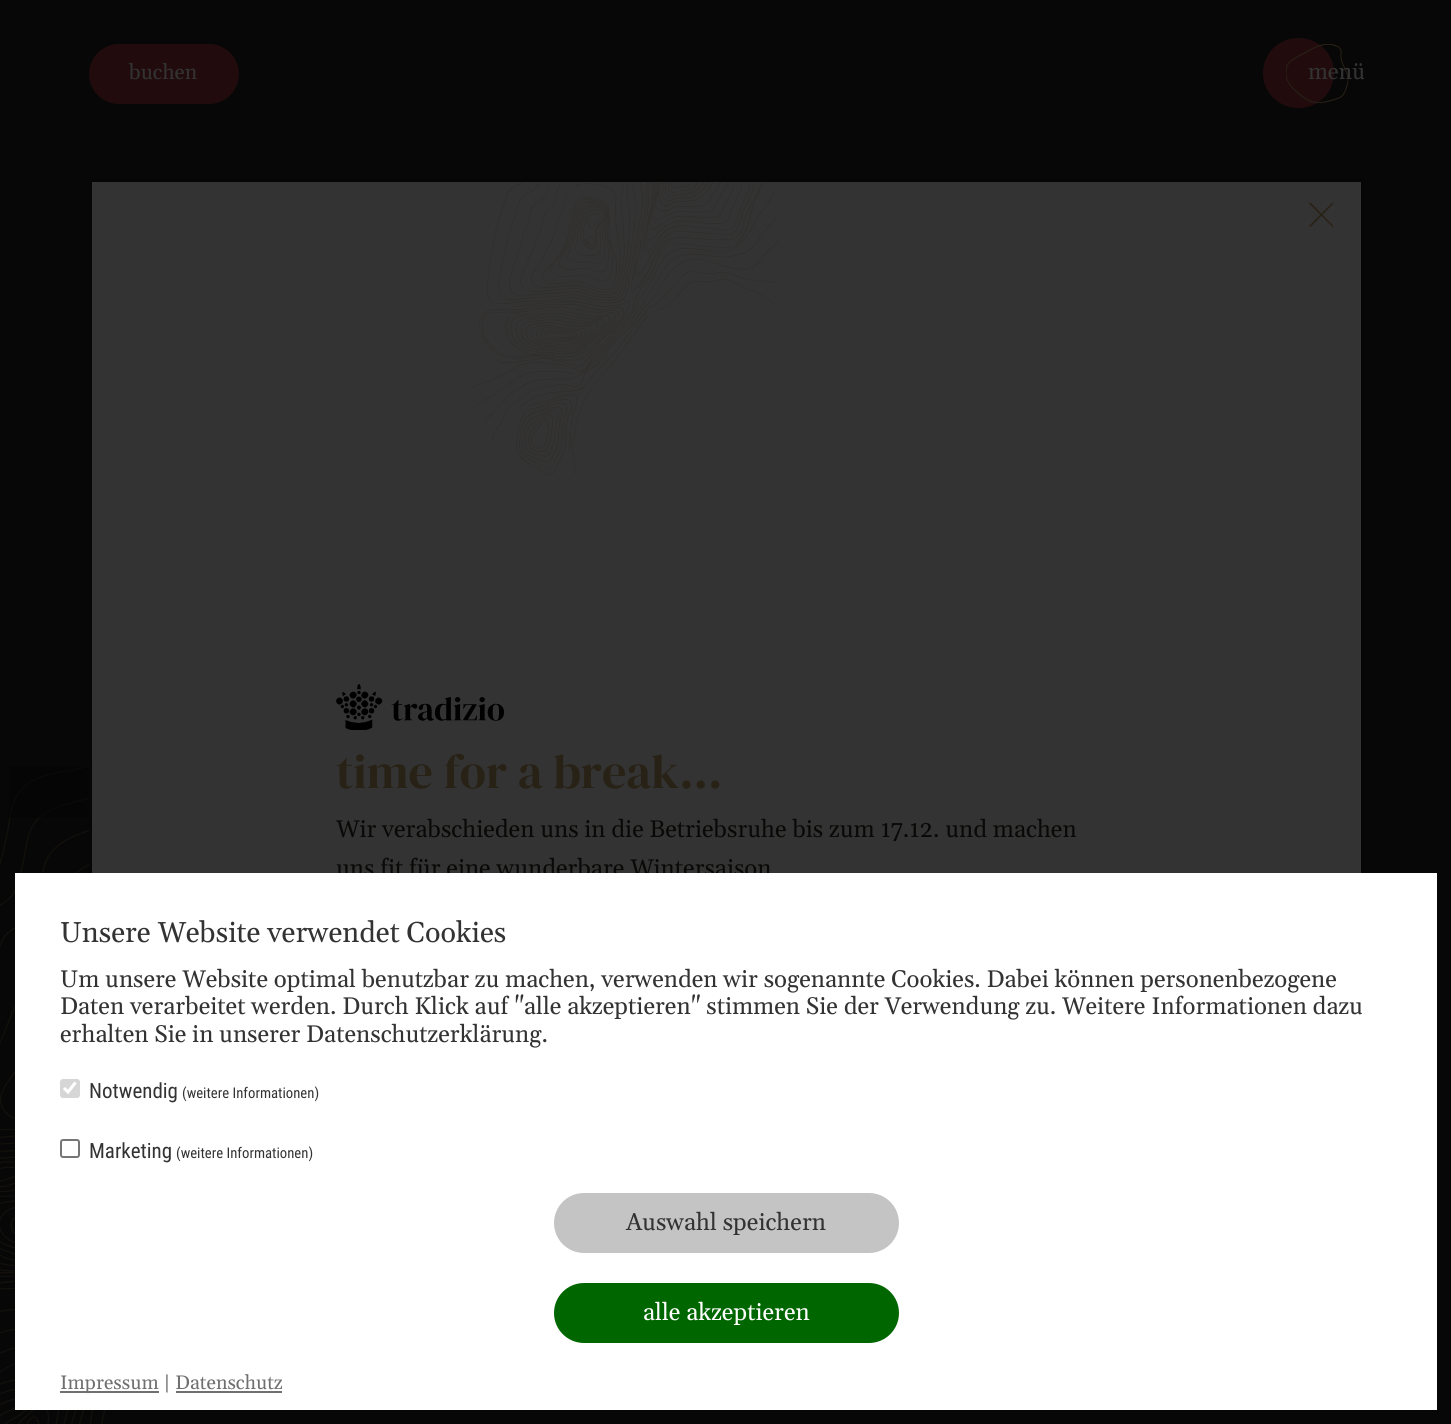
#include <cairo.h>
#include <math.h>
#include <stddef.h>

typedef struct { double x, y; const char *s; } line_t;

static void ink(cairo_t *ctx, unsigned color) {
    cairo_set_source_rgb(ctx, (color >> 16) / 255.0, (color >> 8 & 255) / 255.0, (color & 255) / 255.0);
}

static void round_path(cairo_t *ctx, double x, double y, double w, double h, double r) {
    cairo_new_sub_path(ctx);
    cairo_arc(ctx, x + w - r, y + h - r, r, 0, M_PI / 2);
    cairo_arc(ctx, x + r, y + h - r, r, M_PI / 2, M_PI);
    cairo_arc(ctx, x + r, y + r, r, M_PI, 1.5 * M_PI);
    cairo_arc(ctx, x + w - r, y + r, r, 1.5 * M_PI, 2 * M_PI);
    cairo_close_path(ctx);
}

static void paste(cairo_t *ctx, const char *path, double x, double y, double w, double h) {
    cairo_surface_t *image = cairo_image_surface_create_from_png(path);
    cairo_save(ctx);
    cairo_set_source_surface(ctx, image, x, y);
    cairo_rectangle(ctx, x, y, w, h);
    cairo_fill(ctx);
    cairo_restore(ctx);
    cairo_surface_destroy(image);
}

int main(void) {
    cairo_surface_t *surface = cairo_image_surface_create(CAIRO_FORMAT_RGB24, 1451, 1424);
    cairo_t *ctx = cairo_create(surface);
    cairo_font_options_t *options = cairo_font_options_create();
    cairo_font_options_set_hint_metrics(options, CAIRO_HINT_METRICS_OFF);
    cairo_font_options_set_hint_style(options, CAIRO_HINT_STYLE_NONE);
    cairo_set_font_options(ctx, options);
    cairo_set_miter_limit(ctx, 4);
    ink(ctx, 0x070707);
    cairo_paint(ctx);
    ink(ctx, 0x210B0D);
    round_path(ctx, 90.5, 45.5, 147, 57, 28.5);
    cairo_fill_preserve(ctx);
    cairo_set_line_width(ctx, 3);
    cairo_stroke(ctx);
    cairo_select_font_face(ctx, "Gelasio", CAIRO_FONT_SLANT_NORMAL, CAIRO_FONT_WEIGHT_NORMAL);
    cairo_set_font_size(ctx, 21);
    ink(ctx, 0x333333);
    cairo_move_to(ctx, 129, 79);
    cairo_show_text(ctx, "buchen");
    ink(ctx, 0x210B0D);
    round_path(ctx, 1263, 38, 71, 70, 35);
    cairo_fill(ctx);
    paste(ctx, "media/1.png", 1286, 44, 63, 60);
    cairo_set_font_size(ctx, 22.5);
    ink(ctx, 0x333333);
    cairo_move_to(ctx, 1308, 79);
    cairo_show_text(ctx, "menü");
    paste(ctx, "media/2.png", 0, 766, 106, 658);
    cairo_set_source_rgba(ctx, 0.016, 0.02, 0.02, 0.55);
    cairo_rectangle(ctx, 9, 766, 97, 52);
    cairo_fill(ctx);
    ink(ctx, 0x333333);
    cairo_rectangle(ctx, 92, 182, 1269, 691);
    cairo_fill(ctx);
    cairo_rectangle(ctx, 90.5, 180.5, 1272, 1066);
    ink(ctx, 0x060606);
    cairo_stroke(ctx);
    paste(ctx, "media/3.png", 469, 181, 311, 294);
    ink(ctx, 0x282115);
    cairo_new_path(ctx);
    cairo_move_to(ctx, 1332.5, 227);
    cairo_line_to(ctx, 1309, 203.5);
    cairo_line_to(ctx, 1310.5, 202.5);
    cairo_line_to(ctx, 1333.5, 226);
    cairo_close_path(ctx);
    cairo_fill(ctx);
    cairo_new_path(ctx);
    cairo_move_to(ctx, 1333.5, 203.5);
    cairo_line_to(ctx, 1310.5, 227);
    cairo_line_to(ctx, 1309, 226);
    cairo_line_to(ctx, 1332.5, 202.5);
    cairo_close_path(ctx);
    cairo_fill(ctx);
    paste(ctx, "media/4.png", 336, 684, 168, 46);
    cairo_select_font_face(ctx, "DM Serif Display", CAIRO_FONT_SLANT_NORMAL, CAIRO_FONT_WEIGHT_NORMAL);
    cairo_set_font_size(ctx, 48);
    cairo_move_to(ctx, 336, 788);
    cairo_show_text(ctx, "time for a break...");
    cairo_select_font_face(ctx, "Gelasio", CAIRO_FONT_SLANT_NORMAL, CAIRO_FONT_WEIGHT_NORMAL);
    cairo_set_font_size(ctx, 24);
    ink(ctx, 0x090908);
    cairo_move_to(ctx, 336, 837);
    cairo_show_text(ctx, "Wir verabschieden uns in die Betriebsruhe bis zum 17.12. und machen");
    cairo_move_to(ctx, 336, 876);
    cairo_show_text(ctx, "uns fit für eine wunderbare Wintersaison");
    ink(ctx, 0xFFFFFF);
    cairo_rectangle(ctx, 15, 873, 1422, 537);
    cairo_fill(ctx);
    cairo_set_font_size(ctx, 28.75);
    ink(ctx, 0x333333);
    cairo_move_to(ctx, 60, 942);
    cairo_show_text(ctx, "Unsere Website verwendet Cookies");
    cairo_set_font_size(ctx, 24);
    {
        static const line_t items[] = {
            {60, 987, "Um unsere Website optimal benutzbar zu machen, verwenden wir sogenannte Cookies. Dabei können personenbezogene"},
            {60, 1014, "Daten verarbeitet werden. Durch Klick auf \"alle akzeptieren\" stimmen Sie der Verwendung zu. Weitere Informationen dazu"},
            {60, 1042, "erhalten Sie in unserer Datenschutzerklärung."},
        };
        for (size_t i = 0; i < sizeof items / sizeof *items; i++) {
            cairo_move_to(ctx, items[i].x, items[i].y);
            cairo_show_text(ctx, items[i].s);
        }
    }
    ink(ctx, 0xD6D6D6);
    round_path(ctx, 60, 1079, 20, 19, 3);
    cairo_fill(ctx);
    cairo_new_path(ctx);
    cairo_move_to(ctx, 64, 1088);
    cairo_line_to(ctx, 68, 1092);
    cairo_line_to(ctx, 75.5, 1082.5);
    ink(ctx, 0xFFFFFF);
    cairo_set_line_width(ctx, 3.1);
    cairo_stroke(ctx);
    cairo_select_font_face(ctx, "Roboto Condensed", CAIRO_FONT_SLANT_NORMAL, CAIRO_FONT_WEIGHT_NORMAL);
    cairo_set_font_size(ctx, 21);
    ink(ctx, 0x333333);
    cairo_move_to(ctx, 89, 1098);
    cairo_show_text(ctx, "Notwendig");
    cairo_set_font_size(ctx, 14.75);
    cairo_move_to(ctx, 182, 1098);
    cairo_show_text(ctx, "(weitere Informationen)");
    round_path(ctx, 61, 1140, 18, 17, 2);
    ink(ctx, 0x767676);
    cairo_set_line_width(ctx, 2);
    cairo_stroke(ctx);
    cairo_set_font_size(ctx, 21);
    ink(ctx, 0x333333);
    cairo_move_to(ctx, 89, 1158);
    cairo_show_text(ctx, "Marketing");
    cairo_set_font_size(ctx, 14.75);
    cairo_move_to(ctx, 176, 1158);
    cairo_show_text(ctx, "(weitere Informationen)");
    ink(ctx, 0xC4C4C4);
    round_path(ctx, 554, 1193, 345, 60, 30);
    cairo_fill(ctx);
    cairo_select_font_face(ctx, "Gelasio", CAIRO_FONT_SLANT_NORMAL, CAIRO_FONT_WEIGHT_NORMAL);
    cairo_set_font_size(ctx, 24);
    ink(ctx, 0x333333);
    cairo_move_to(ctx, 626, 1230);
    cairo_show_text(ctx, "Auswahl speichern");
    ink(ctx, 0x006600);
    round_path(ctx, 554, 1283, 345, 60, 30);
    cairo_fill(ctx);
    ink(ctx, 0xFFFFFF);
    cairo_move_to(ctx, 643, 1320);
    cairo_show_text(ctx, "alle akzeptieren");
    ink(ctx, 0x707070);
    cairo_rectangle(ctx, 60, 1391, 99, 2);
    cairo_fill(ctx);
    cairo_set_font_size(ctx, 19.5);
    cairo_move_to(ctx, 60, 1389);
    cairo_show_text(ctx, "Impressum | Datenschutz");
    cairo_rectangle(ctx, 176, 1391, 106, 2);
    cairo_fill(ctx);
    cairo_surface_write_to_png(surface, "image.png");
    cairo_font_options_destroy(options);
    cairo_destroy(ctx);
    cairo_surface_destroy(surface);
    return 0;
}
